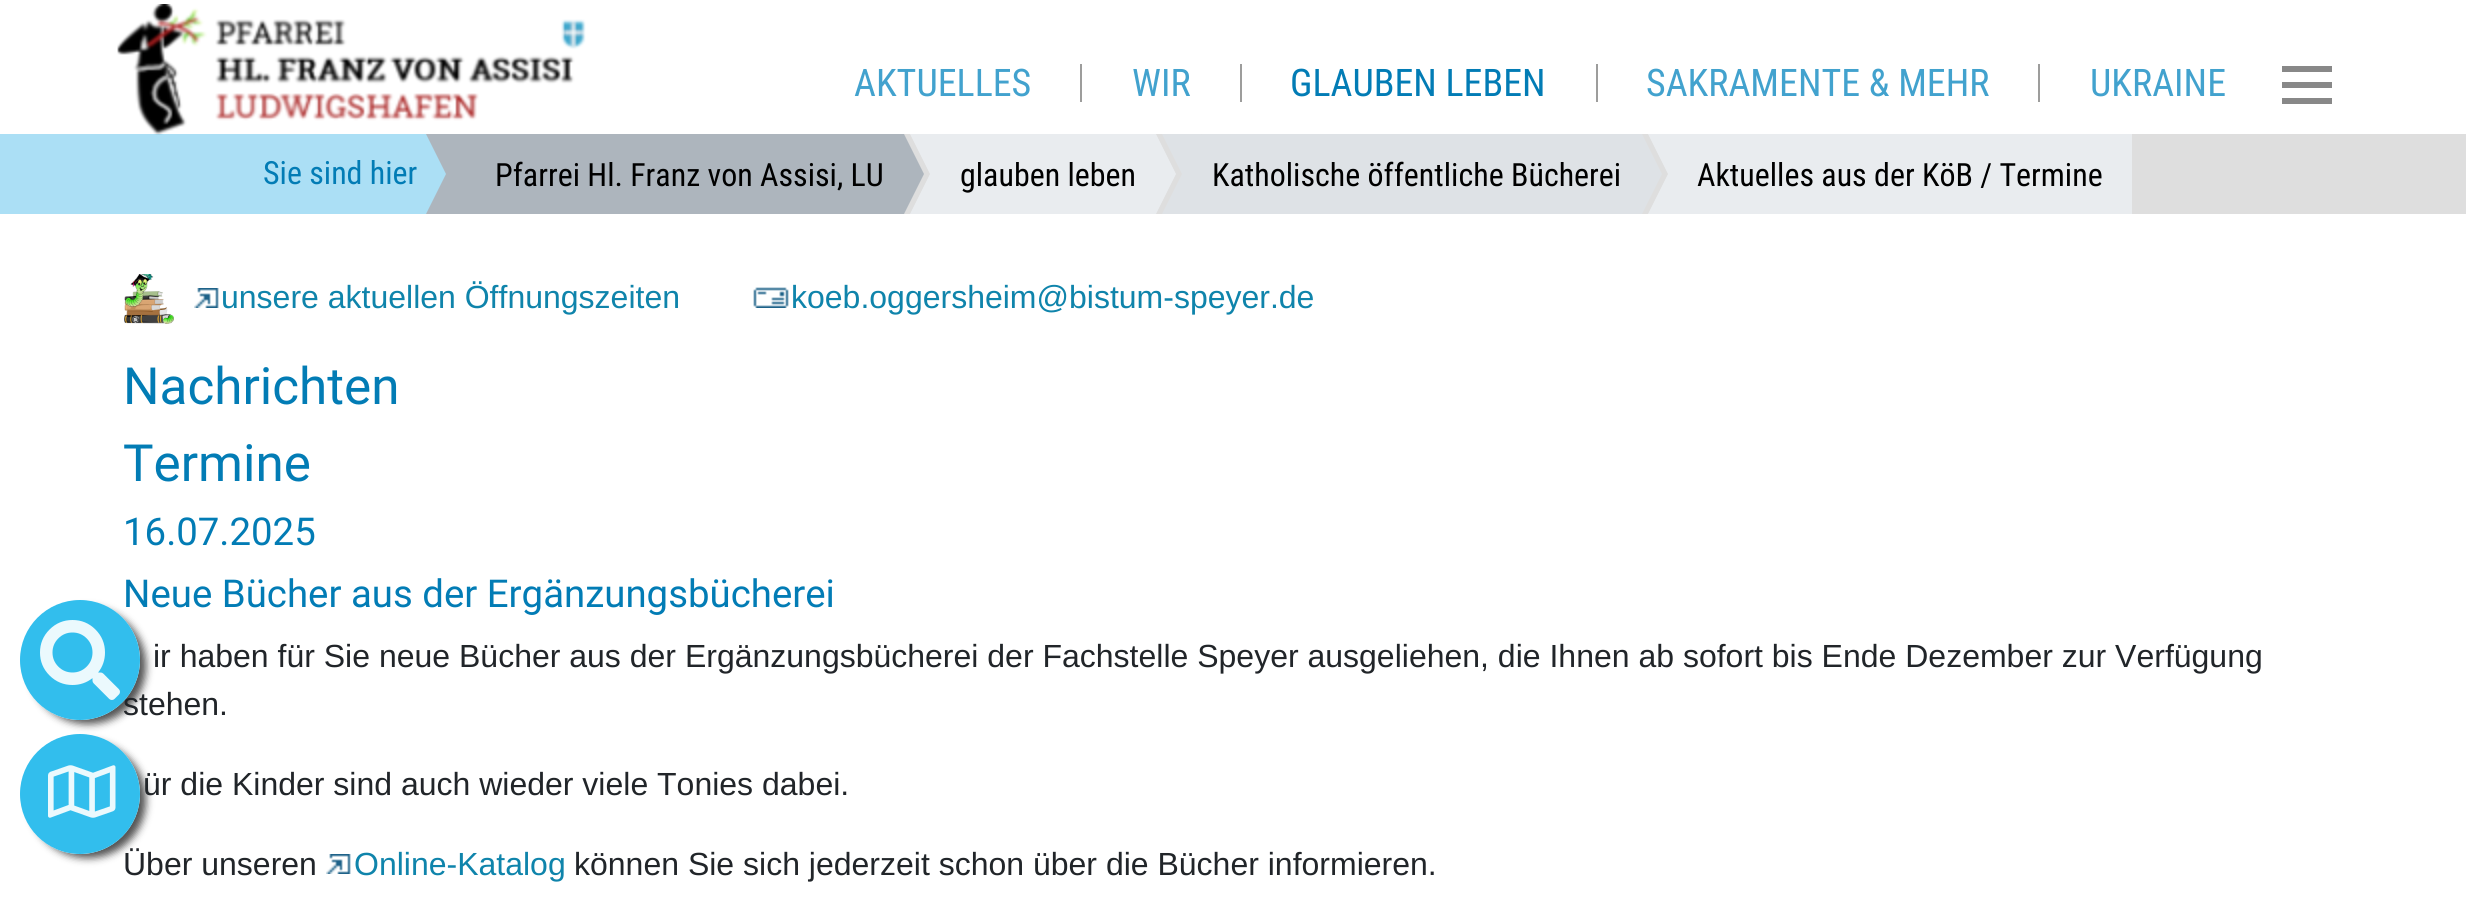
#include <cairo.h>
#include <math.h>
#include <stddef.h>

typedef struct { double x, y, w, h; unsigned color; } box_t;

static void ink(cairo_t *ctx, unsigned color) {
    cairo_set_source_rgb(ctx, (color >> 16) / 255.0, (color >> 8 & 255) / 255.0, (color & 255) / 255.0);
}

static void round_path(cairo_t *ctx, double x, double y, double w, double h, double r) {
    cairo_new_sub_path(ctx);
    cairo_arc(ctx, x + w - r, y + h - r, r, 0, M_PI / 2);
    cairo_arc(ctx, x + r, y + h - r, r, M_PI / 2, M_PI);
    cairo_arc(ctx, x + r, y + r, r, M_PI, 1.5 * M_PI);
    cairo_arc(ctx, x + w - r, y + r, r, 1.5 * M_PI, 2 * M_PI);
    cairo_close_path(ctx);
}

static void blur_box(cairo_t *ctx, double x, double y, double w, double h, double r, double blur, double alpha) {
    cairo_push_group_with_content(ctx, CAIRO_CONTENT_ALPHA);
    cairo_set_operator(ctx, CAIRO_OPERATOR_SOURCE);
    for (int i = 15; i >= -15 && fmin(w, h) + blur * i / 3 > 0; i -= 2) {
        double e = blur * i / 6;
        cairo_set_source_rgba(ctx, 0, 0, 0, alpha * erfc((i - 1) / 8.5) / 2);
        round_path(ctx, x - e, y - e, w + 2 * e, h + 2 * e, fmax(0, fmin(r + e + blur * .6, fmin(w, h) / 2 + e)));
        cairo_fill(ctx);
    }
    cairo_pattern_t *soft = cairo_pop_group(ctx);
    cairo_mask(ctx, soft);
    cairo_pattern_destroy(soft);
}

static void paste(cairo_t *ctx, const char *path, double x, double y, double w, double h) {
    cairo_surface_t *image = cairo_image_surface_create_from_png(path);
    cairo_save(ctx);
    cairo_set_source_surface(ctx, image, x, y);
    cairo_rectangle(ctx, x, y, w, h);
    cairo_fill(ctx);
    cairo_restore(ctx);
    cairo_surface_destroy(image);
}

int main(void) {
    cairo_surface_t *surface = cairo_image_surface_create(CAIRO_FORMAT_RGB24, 2466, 914);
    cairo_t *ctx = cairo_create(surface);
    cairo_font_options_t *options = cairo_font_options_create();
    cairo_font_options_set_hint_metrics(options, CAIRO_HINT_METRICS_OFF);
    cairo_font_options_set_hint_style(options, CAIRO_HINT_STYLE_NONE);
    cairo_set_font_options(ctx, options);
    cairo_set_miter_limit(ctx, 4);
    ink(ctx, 0xFFFFFF);
    cairo_paint(ctx);
    ink(ctx, 0xABDFF5);
    cairo_rectangle(ctx, 0, 134, 446, 80);
    cairo_fill(ctx);
    ink(ctx, 0xADB5BD);
    cairo_rectangle(ctx, 466, 134, 438, 80);
    cairo_fill(ctx);
    cairo_new_path(ctx);
    cairo_move_to(ctx, 426, 134);
    cairo_line_to(ctx, 466, 134);
    cairo_line_to(ctx, 446, 174);
    cairo_close_path(ctx);
    cairo_fill(ctx);
    cairo_rectangle(ctx, 446, 134, 20, 80);
    cairo_fill(ctx);
    paste(ctx, "media/1.png", 117, 4, 469, 131);
    cairo_select_font_face(ctx, "Roboto Condensed", CAIRO_FONT_SLANT_NORMAL, CAIRO_FONT_WEIGHT_NORMAL);
    cairo_set_font_size(ctx, 38);
    ink(ctx, 0x42A2CE);
    cairo_move_to(ctx, 854, 96);
    cairo_show_text(ctx, "AKTUELLES");
    ink(ctx, 0x9D9D9C);
    cairo_rectangle(ctx, 1080, 64, 2, 38);
    cairo_fill(ctx);
    ink(ctx, 0x42A2CE);
    cairo_move_to(ctx, 1132, 96);
    cairo_show_text(ctx, "WIR");
    ink(ctx, 0x9D9D9C);
    cairo_rectangle(ctx, 1240, 64, 2, 38);
    cairo_fill(ctx);
    ink(ctx, 0x027CB5);
    cairo_move_to(ctx, 1290, 96);
    cairo_show_text(ctx, "GLAUBEN LEBEN");
    ink(ctx, 0x9D9D9C);
    cairo_rectangle(ctx, 1596, 64, 2, 38);
    cairo_fill(ctx);
    ink(ctx, 0x42A2CE);
    cairo_move_to(ctx, 1646, 96);
    cairo_show_text(ctx, "SAKRAMENTE & MEHR");
    ink(ctx, 0x9D9D9C);
    cairo_rectangle(ctx, 2038, 64, 2, 38);
    cairo_fill(ctx);
    ink(ctx, 0x42A2CE);
    cairo_move_to(ctx, 2090, 96);
    cairo_show_text(ctx, "UKRAINE");
    {
        static const box_t items[] = {
            {2282, 66, 50, 6, 0x888888},
            {2282, 82, 50, 6, 0x888888},
            {2282, 98, 50, 6, 0x888888},
            {904, 134, 1562, 80, 0xDEDEDE},
        };
        for (size_t i = 0; i < sizeof items / sizeof *items; i++) {
            ink(ctx, items[i].color);
            cairo_rectangle(ctx, items[i].x, items[i].y, items[i].w, items[i].h);
            cairo_fill(ctx);
        }
    }
    cairo_set_font_size(ctx, 32);
    ink(ctx, 0x027CB5);
    cairo_move_to(ctx, 263, 184);
    cairo_show_text(ctx, "Sie sind hier");
    ink(ctx, 0xADB5BD);
    cairo_new_path(ctx);
    cairo_move_to(ctx, 466, 214);
    cairo_line_to(ctx, 426, 214);
    cairo_line_to(ctx, 446, 174);
    cairo_close_path(ctx);
    cairo_fill(ctx);
    ink(ctx, 0x000000);
    cairo_move_to(ctx, 495, 186);
    cairo_show_text(ctx, "Pfarrei Hl. Franz von Assisi, LU");
    ink(ctx, 0xADB5BD);
    cairo_new_path(ctx);
    cairo_move_to(ctx, 904, 214);
    cairo_line_to(ctx, 904, 134);
    cairo_line_to(ctx, 924, 174);
    cairo_close_path(ctx);
    cairo_fill(ctx);
    ink(ctx, 0xE9ECEF);
    cairo_rectangle(ctx, 950, 134, 206, 80);
    cairo_fill(ctx);
    cairo_new_path(ctx);
    cairo_move_to(ctx, 910, 134);
    cairo_line_to(ctx, 950, 134);
    cairo_line_to(ctx, 930, 174);
    cairo_close_path(ctx);
    cairo_fill(ctx);
    cairo_rectangle(ctx, 930, 134, 20, 80);
    cairo_fill(ctx);
    cairo_new_path(ctx);
    cairo_move_to(ctx, 950, 214);
    cairo_line_to(ctx, 910, 214);
    cairo_line_to(ctx, 930, 174);
    cairo_close_path(ctx);
    cairo_fill(ctx);
    ink(ctx, 0x000000);
    cairo_move_to(ctx, 960, 186);
    cairo_show_text(ctx, "glauben leben");
    ink(ctx, 0xE9ECEF);
    cairo_new_path(ctx);
    cairo_move_to(ctx, 1156, 214);
    cairo_line_to(ctx, 1156, 134);
    cairo_line_to(ctx, 1176, 174);
    cairo_close_path(ctx);
    cairo_fill(ctx);
    ink(ctx, 0xDEE2E6);
    cairo_rectangle(ctx, 1202, 134, 440, 80);
    cairo_fill(ctx);
    cairo_new_path(ctx);
    cairo_move_to(ctx, 1162, 134);
    cairo_line_to(ctx, 1202, 134);
    cairo_line_to(ctx, 1182, 174);
    cairo_close_path(ctx);
    cairo_fill(ctx);
    cairo_rectangle(ctx, 1182, 135, 20, 79);
    cairo_fill(ctx);
    cairo_new_path(ctx);
    cairo_move_to(ctx, 1202, 214);
    cairo_line_to(ctx, 1162, 214);
    cairo_line_to(ctx, 1182, 174);
    cairo_close_path(ctx);
    cairo_fill(ctx);
    ink(ctx, 0x000000);
    cairo_move_to(ctx, 1212, 186);
    cairo_show_text(ctx, "Katholische öffentliche Bücherei");
    ink(ctx, 0xDEE2E6);
    cairo_new_path(ctx);
    cairo_move_to(ctx, 1642, 214);
    cairo_line_to(ctx, 1642, 134);
    cairo_line_to(ctx, 1662, 174);
    cairo_close_path(ctx);
    cairo_fill(ctx);
    ink(ctx, 0xE9ECEF);
    cairo_rectangle(ctx, 1688, 134, 444, 80);
    cairo_fill(ctx);
    cairo_new_path(ctx);
    cairo_move_to(ctx, 1648, 134);
    cairo_line_to(ctx, 1688, 134);
    cairo_line_to(ctx, 1668, 174);
    cairo_close_path(ctx);
    cairo_fill(ctx);
    cairo_rectangle(ctx, 1668, 134, 20, 80);
    cairo_fill(ctx);
    cairo_new_path(ctx);
    cairo_move_to(ctx, 1688, 214);
    cairo_line_to(ctx, 1648, 214);
    cairo_line_to(ctx, 1668, 174);
    cairo_close_path(ctx);
    cairo_fill(ctx);
    ink(ctx, 0x000000);
    cairo_move_to(ctx, 1697, 186);
    cairo_show_text(ctx, "Aktuelles aus der KöB / Termine");
    cairo_save(ctx);
    cairo_set_fill_rule(ctx, CAIRO_FILL_RULE_EVEN_ODD);
    cairo_new_path(ctx);
    cairo_move_to(ctx, 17, 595);
    cairo_line_to(ctx, 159, 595);
    cairo_line_to(ctx, 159, 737);
    cairo_line_to(ctx, 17, 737);
    cairo_close_path(ctx);
    cairo_move_to(ctx, 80, 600);
    cairo_curve_to(ctx, 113, 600, 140, 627, 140, 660);
    cairo_curve_to(ctx, 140, 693, 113, 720, 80, 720);
    cairo_curve_to(ctx, 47, 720, 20, 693, 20, 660);
    cairo_curve_to(ctx, 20, 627, 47, 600, 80, 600);
    cairo_close_path(ctx);
    cairo_clip(ctx);
    ink(ctx, 0x000000);
    blur_box(ctx, 30, 608, 116, 116, 58, 4, 0.68);
    cairo_restore(ctx);
    cairo_select_font_face(ctx, "Roboto", CAIRO_FONT_SLANT_NORMAL, CAIRO_FONT_WEIGHT_NORMAL);
    cairo_set_font_size(ctx, 38.4);
    ink(ctx, 0x027CB5);
    cairo_move_to(ctx, 123, 607);
    cairo_show_text(ctx, "Neue Bücher aus der Ergänzungsbücherei");
    cairo_select_font_face(ctx, "Liberation Sans", CAIRO_FONT_SLANT_NORMAL, CAIRO_FONT_WEIGHT_NORMAL);
    cairo_set_font_size(ctx, 32);
    ink(ctx, 0x212529);
    cairo_move_to(ctx, 123, 715);
    cairo_show_text(ctx, "stehen.");
    cairo_set_source_rgba(ctx, 0.11, 0.718, 0.922, 0.9);
    cairo_new_path(ctx);
    cairo_arc(ctx, 80, 660, 60, 0, 2 * M_PI);
    cairo_fill(ctx);
    paste(ctx, "media/2.png", 40, 620, 80, 80);
    cairo_save(ctx);
    cairo_set_fill_rule(ctx, CAIRO_FILL_RULE_EVEN_ODD);
    cairo_new_path(ctx);
    cairo_move_to(ctx, 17, 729);
    cairo_line_to(ctx, 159, 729);
    cairo_line_to(ctx, 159, 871);
    cairo_line_to(ctx, 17, 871);
    cairo_close_path(ctx);
    cairo_move_to(ctx, 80, 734);
    cairo_curve_to(ctx, 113, 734, 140, 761, 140, 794);
    cairo_curve_to(ctx, 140, 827, 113, 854, 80, 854);
    cairo_curve_to(ctx, 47, 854, 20, 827, 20, 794);
    cairo_curve_to(ctx, 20, 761, 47, 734, 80, 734);
    cairo_close_path(ctx);
    cairo_clip(ctx);
    ink(ctx, 0x000000);
    blur_box(ctx, 30, 742, 116, 116, 58, 4, 0.68);
    cairo_restore(ctx);
    ink(ctx, 0x212529);
    cairo_move_to(ctx, 123, 875);
    cairo_show_text(ctx, "Über unseren");
    cairo_set_source_rgba(ctx, 0.11, 0.718, 0.922, 0.9);
    cairo_new_path(ctx);
    cairo_arc(ctx, 80, 794, 60, 0, 2 * M_PI);
    cairo_fill(ctx);
    paste(ctx, "media/3.png", 48, 765, 68, 53);
    paste(ctx, "media/4.png", 124, 274, 50, 50);
    paste(ctx, "media/5.png", 194, 288, 25, 20);
    ink(ctx, 0x0F84AB);
    cairo_move_to(ctx, 221, 308);
    cairo_show_text(ctx, "unsere aktuellen Öffnungszeiten");
    paste(ctx, "media/6.png", 753, 287, 36, 21);
    cairo_move_to(ctx, 791, 308);
    cairo_show_text(ctx, "koeb.oggersheim@bistum-speyer.de");
    cairo_select_font_face(ctx, "Roboto", CAIRO_FONT_SLANT_NORMAL, CAIRO_FONT_WEIGHT_NORMAL);
    cairo_set_font_size(ctx, 51.25);
    ink(ctx, 0x027CB5);
    cairo_move_to(ctx, 123, 404);
    cairo_show_text(ctx, "Nachrichten");
    cairo_move_to(ctx, 123, 481);
    cairo_show_text(ctx, "Termine");
    cairo_set_font_size(ctx, 38.4);
    cairo_move_to(ctx, 123, 545);
    cairo_show_text(ctx, "16.07.2025");
    cairo_select_font_face(ctx, "Liberation Sans", CAIRO_FONT_SLANT_NORMAL, CAIRO_FONT_WEIGHT_NORMAL);
    cairo_set_font_size(ctx, 32);
    ink(ctx, 0x212529);
    cairo_move_to(ctx, 153, 667);
    cairo_show_text(ctx, "ir haben für Sie neue Bücher aus der Ergänzungsbücherei der Fachstelle Speyer ausgeliehen, die Ihnen ab sofort bis Ende Dezember zur Verfügung");
    cairo_move_to(ctx, 143, 795);
    cairo_show_text(ctx, "ür die Kinder sind auch wieder viele Tonies dabei.");
    paste(ctx, "media/5.png", 326, 854, 25, 20);
    ink(ctx, 0x0F84AB);
    cairo_move_to(ctx, 354, 875);
    cairo_show_text(ctx, "Online-Katalog");
    ink(ctx, 0x212529);
    cairo_move_to(ctx, 574, 875);
    cairo_show_text(ctx, "können Sie sich jederzeit schon über die Bücher informieren.");
    cairo_surface_write_to_png(surface, "image.png");
    cairo_font_options_destroy(options);
    cairo_destroy(ctx);
    cairo_surface_destroy(surface);
    return 0;
}
